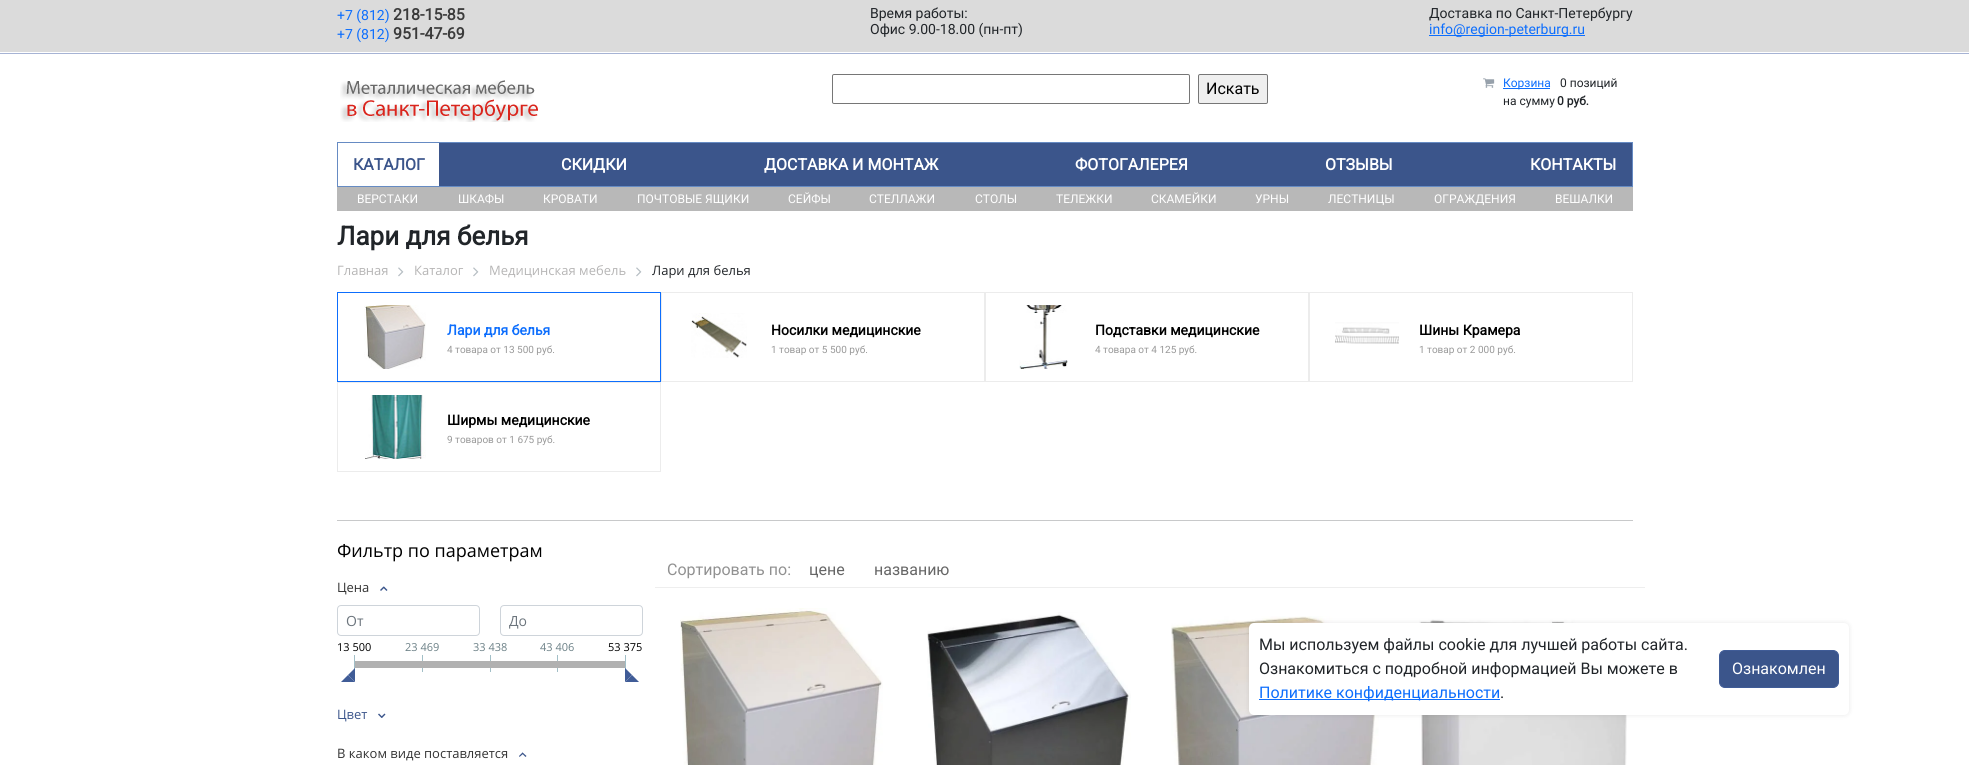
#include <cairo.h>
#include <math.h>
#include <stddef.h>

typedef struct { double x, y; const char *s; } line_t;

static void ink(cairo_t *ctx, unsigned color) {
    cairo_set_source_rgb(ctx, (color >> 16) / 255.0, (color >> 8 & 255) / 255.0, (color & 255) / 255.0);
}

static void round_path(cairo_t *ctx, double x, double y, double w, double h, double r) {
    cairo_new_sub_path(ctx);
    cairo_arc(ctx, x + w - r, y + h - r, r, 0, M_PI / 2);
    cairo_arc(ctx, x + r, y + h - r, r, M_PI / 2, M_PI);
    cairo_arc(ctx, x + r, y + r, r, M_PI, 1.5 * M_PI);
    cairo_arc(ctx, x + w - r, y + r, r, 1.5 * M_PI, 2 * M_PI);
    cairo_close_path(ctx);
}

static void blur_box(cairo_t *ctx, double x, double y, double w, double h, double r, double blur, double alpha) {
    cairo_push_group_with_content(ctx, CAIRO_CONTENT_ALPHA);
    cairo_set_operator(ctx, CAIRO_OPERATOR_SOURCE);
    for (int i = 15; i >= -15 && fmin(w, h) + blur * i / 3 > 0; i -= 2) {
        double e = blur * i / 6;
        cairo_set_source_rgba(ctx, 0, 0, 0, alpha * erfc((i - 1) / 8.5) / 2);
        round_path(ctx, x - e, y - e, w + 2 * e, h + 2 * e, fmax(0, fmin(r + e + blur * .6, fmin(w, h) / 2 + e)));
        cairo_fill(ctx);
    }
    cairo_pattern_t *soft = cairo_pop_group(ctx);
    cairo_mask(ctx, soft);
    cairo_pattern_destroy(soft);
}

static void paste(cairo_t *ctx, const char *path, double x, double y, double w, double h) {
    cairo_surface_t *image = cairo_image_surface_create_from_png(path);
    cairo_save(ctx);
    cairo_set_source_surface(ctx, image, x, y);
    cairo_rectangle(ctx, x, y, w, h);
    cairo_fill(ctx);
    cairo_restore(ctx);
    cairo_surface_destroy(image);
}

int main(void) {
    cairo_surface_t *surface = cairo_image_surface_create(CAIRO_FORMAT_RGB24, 1969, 765);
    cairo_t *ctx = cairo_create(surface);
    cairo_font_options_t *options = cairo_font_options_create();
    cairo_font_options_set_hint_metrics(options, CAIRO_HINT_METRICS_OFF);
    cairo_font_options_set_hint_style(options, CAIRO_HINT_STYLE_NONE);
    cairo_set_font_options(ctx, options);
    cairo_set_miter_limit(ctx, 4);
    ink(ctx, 0xFFFFFF);
    cairo_paint(ctx);
    ink(ctx, 0xDBDBDB);
    cairo_rectangle(ctx, 0, 0, 1969, 52);
    cairo_fill(ctx);
    ink(ctx, 0xA6B3D4);
    cairo_rectangle(ctx, 0, 53, 1969, 1);
    cairo_fill(ctx);
    cairo_select_font_face(ctx, "Roboto", CAIRO_FONT_SLANT_NORMAL, CAIRO_FONT_WEIGHT_NORMAL);
    cairo_set_font_size(ctx, 14);
    ink(ctx, 0x0D6EFD);
    cairo_move_to(ctx, 337, 20);
    cairo_show_text(ctx, "+7 (812)");
    cairo_select_font_face(ctx, "Roboto", CAIRO_FONT_SLANT_NORMAL, CAIRO_FONT_WEIGHT_BOLD);
    cairo_set_font_size(ctx, 16);
    ink(ctx, 0x3B3B3B);
    cairo_move_to(ctx, 393, 20);
    cairo_show_text(ctx, "218-15-85");
    cairo_select_font_face(ctx, "Roboto", CAIRO_FONT_SLANT_NORMAL, CAIRO_FONT_WEIGHT_NORMAL);
    cairo_set_font_size(ctx, 14);
    ink(ctx, 0x0D6EFD);
    cairo_move_to(ctx, 337, 39);
    cairo_show_text(ctx, "+7 (812)");
    cairo_select_font_face(ctx, "Roboto", CAIRO_FONT_SLANT_NORMAL, CAIRO_FONT_WEIGHT_BOLD);
    cairo_set_font_size(ctx, 16);
    ink(ctx, 0x3B3B3B);
    cairo_move_to(ctx, 393, 39);
    cairo_show_text(ctx, "951-47-69");
    cairo_select_font_face(ctx, "Roboto", CAIRO_FONT_SLANT_NORMAL, CAIRO_FONT_WEIGHT_NORMAL);
    cairo_set_font_size(ctx, 14);
    ink(ctx, 0x212529);
    {
        static const line_t items[] = {
            {870, 18, "Время работы:"},
            {870, 34, "Офис 9.00-18.00 (пн-пт)"},
            {1429, 18, "Доставка по Санкт-Петербургу"},
        };
        for (size_t i = 0; i < sizeof items / sizeof *items; i++) {
            cairo_move_to(ctx, items[i].x, items[i].y);
            cairo_show_text(ctx, items[i].s);
        }
    }
    ink(ctx, 0x0D6EFD);
    cairo_rectangle(ctx, 1429, 35, 156, 1);
    cairo_fill(ctx);
    cairo_move_to(ctx, 1429, 34);
    cairo_show_text(ctx, "info@region-peterburg.ru");
    paste(ctx, "media/1.png", 340, 80, 198, 42);
    round_path(ctx, 832.5, 74.5, 357, 29, 1.5);
    ink(ctx, 0x767676);
    cairo_set_line_width(ctx, 1);
    cairo_stroke(ctx);
    ink(ctx, 0xEFEFEF);
    round_path(ctx, 1198.5, 74.5, 69, 29, 1.5);
    cairo_fill_preserve(ctx);
    ink(ctx, 0x767676);
    cairo_stroke(ctx);
    cairo_set_font_size(ctx, 16);
    ink(ctx, 0x000000);
    cairo_move_to(ctx, 1206, 94);
    cairo_show_text(ctx, "Искать");
    paste(ctx, "media/2.png", 1483, 78, 12, 10);
    ink(ctx, 0x0D6EFD);
    cairo_rectangle(ctx, 1503, 88, 47, 1);
    cairo_fill(ctx);
    cairo_set_font_size(ctx, 12);
    cairo_move_to(ctx, 1503, 87);
    cairo_show_text(ctx, "Корзина");
    ink(ctx, 0x212529);
    cairo_move_to(ctx, 1560, 87);
    cairo_show_text(ctx, "0 позиций");
    cairo_move_to(ctx, 1503, 105);
    cairo_show_text(ctx, "на сумму");
    cairo_select_font_face(ctx, "Roboto", CAIRO_FONT_SLANT_NORMAL, CAIRO_FONT_WEIGHT_BOLD);
    cairo_move_to(ctx, 1557, 105);
    cairo_show_text(ctx, "0 руб.");
    ink(ctx, 0x3B558B);
    cairo_rectangle(ctx, 439, 143, 1193, 43);
    cairo_fill(ctx);
    cairo_rectangle(ctx, 337.5, 142.5, 1295, 44);
    ink(ctx, 0x668BC3);
    cairo_stroke(ctx);
    cairo_set_font_size(ctx, 16);
    ink(ctx, 0x3B558B);
    cairo_move_to(ctx, 353, 170);
    cairo_show_text(ctx, "КАТАЛОГ");
    ink(ctx, 0xFFFFFF);
    {
        static const line_t items[] = {
            {561, 170, "СКИДКИ"},
            {764, 170, "ДОСТАВКА И МОНТАЖ"},
            {1075, 170, "ФОТОГАЛЕРЕЯ"},
            {1325, 170, "ОТЗЫВЫ"},
            {1530, 170, "КОНТАКТЫ"},
        };
        for (size_t i = 0; i < sizeof items / sizeof *items; i++) {
            cairo_move_to(ctx, items[i].x, items[i].y);
            cairo_show_text(ctx, items[i].s);
        }
    }
    ink(ctx, 0xB8B8B8);
    cairo_rectangle(ctx, 337, 187, 1296, 24);
    cairo_fill(ctx);
    cairo_select_font_face(ctx, "Roboto", CAIRO_FONT_SLANT_NORMAL, CAIRO_FONT_WEIGHT_NORMAL);
    cairo_set_font_size(ctx, 12);
    ink(ctx, 0xFFFFFF);
    {
        static const line_t items[] = {
            {357, 203, "ВЕРСТАКИ"},
            {458, 203, "ШКАФЫ"},
            {543, 203, "КРОВАТИ"},
            {637, 203, "ПОЧТОВЫЕ ЯЩИКИ"},
            {788, 203, "СЕЙФЫ"},
            {869, 203, "СТЕЛЛАЖИ"},
            {975, 203, "СТОЛЫ"},
            {1056, 203, "ТЕЛЕЖКИ"},
            {1151, 203, "СКАМЕЙКИ"},
            {1255, 203, "УРНЫ"},
            {1328, 203, "ЛЕСТНИЦЫ"},
            {1434, 203, "ОГРАЖДЕНИЯ"},
            {1555, 203, "ВЕШАЛКИ"},
        };
        for (size_t i = 0; i < sizeof items / sizeof *items; i++) {
            cairo_move_to(ctx, items[i].x, items[i].y);
            cairo_show_text(ctx, items[i].s);
        }
    }
    cairo_select_font_face(ctx, "Roboto", CAIRO_FONT_SLANT_NORMAL, CAIRO_FONT_WEIGHT_BOLD);
    cairo_set_font_size(ctx, 26);
    ink(ctx, 0x212529);
    cairo_move_to(ctx, 337, 245);
    cairo_show_text(ctx, "Лари для белья");
    cairo_select_font_face(ctx, "Open Sans", CAIRO_FONT_SLANT_NORMAL, CAIRO_FONT_WEIGHT_NORMAL);
    cairo_set_font_size(ctx, 13);
    ink(ctx, 0xB6B5B5);
    cairo_move_to(ctx, 337, 275);
    cairo_show_text(ctx, "Главная");
    paste(ctx, "media/3.png", 398, 267, 6, 10);
    cairo_move_to(ctx, 414, 275);
    cairo_show_text(ctx, "Каталог");
    paste(ctx, "media/3.png", 473, 267, 6, 10);
    cairo_move_to(ctx, 489, 275);
    cairo_show_text(ctx, "Медицинская мебель");
    paste(ctx, "media/3.png", 636, 267, 6, 10);
    ink(ctx, 0x212529);
    cairo_move_to(ctx, 652, 275);
    cairo_show_text(ctx, "Лари для белья");
    cairo_rectangle(ctx, 337.5, 292.5, 323, 89);
    ink(ctx, 0x0D6EFD);
    cairo_stroke(ctx);
    paste(ctx, "media/4.png", 364, 305, 62, 64);
    cairo_select_font_face(ctx, "Roboto", CAIRO_FONT_SLANT_NORMAL, CAIRO_FONT_WEIGHT_BOLD);
    cairo_set_font_size(ctx, 14);
    cairo_move_to(ctx, 447, 335);
    cairo_show_text(ctx, "Лари для белья");
    cairo_select_font_face(ctx, "Roboto", CAIRO_FONT_SLANT_NORMAL, CAIRO_FONT_WEIGHT_NORMAL);
    cairo_set_font_size(ctx, 10);
    ink(ctx, 0x999999);
    cairo_move_to(ctx, 447, 353);
    cairo_show_text(ctx, "4 товара от 13 500 руб.");
    cairo_rectangle(ctx, 661.5, 292.5, 323, 89);
    ink(ctx, 0xECECEC);
    cairo_stroke(ctx);
    paste(ctx, "media/5.png", 691, 313, 56, 45);
    cairo_select_font_face(ctx, "Roboto", CAIRO_FONT_SLANT_NORMAL, CAIRO_FONT_WEIGHT_BOLD);
    cairo_set_font_size(ctx, 14);
    ink(ctx, 0x000000);
    cairo_move_to(ctx, 771, 335);
    cairo_show_text(ctx, "Носилки медицинские");
    cairo_select_font_face(ctx, "Roboto", CAIRO_FONT_SLANT_NORMAL, CAIRO_FONT_WEIGHT_NORMAL);
    cairo_set_font_size(ctx, 10);
    ink(ctx, 0x999999);
    cairo_move_to(ctx, 771, 353);
    cairo_show_text(ctx, "1 товар от 5 500 руб.");
    cairo_rectangle(ctx, 985.5, 292.5, 323, 89);
    ink(ctx, 0xECECEC);
    cairo_stroke(ctx);
    paste(ctx, "media/6.png", 1019, 305, 49, 64);
    cairo_select_font_face(ctx, "Roboto", CAIRO_FONT_SLANT_NORMAL, CAIRO_FONT_WEIGHT_BOLD);
    cairo_set_font_size(ctx, 14);
    ink(ctx, 0x000000);
    cairo_move_to(ctx, 1095, 335);
    cairo_show_text(ctx, "Подставки медицинские");
    cairo_select_font_face(ctx, "Roboto", CAIRO_FONT_SLANT_NORMAL, CAIRO_FONT_WEIGHT_NORMAL);
    cairo_set_font_size(ctx, 10);
    ink(ctx, 0x999999);
    cairo_move_to(ctx, 1095, 353);
    cairo_show_text(ctx, "4 товара от 4 125 руб.");
    cairo_rectangle(ctx, 1309.5, 292.5, 323, 89);
    ink(ctx, 0xECECEC);
    cairo_stroke(ctx);
    paste(ctx, "media/7.png", 1335, 322, 64, 22);
    cairo_select_font_face(ctx, "Roboto", CAIRO_FONT_SLANT_NORMAL, CAIRO_FONT_WEIGHT_BOLD);
    cairo_set_font_size(ctx, 14);
    ink(ctx, 0x000000);
    cairo_move_to(ctx, 1419, 335);
    cairo_show_text(ctx, "Шины Крамера");
    cairo_select_font_face(ctx, "Roboto", CAIRO_FONT_SLANT_NORMAL, CAIRO_FONT_WEIGHT_NORMAL);
    cairo_set_font_size(ctx, 10);
    ink(ctx, 0x999999);
    cairo_move_to(ctx, 1419, 353);
    cairo_show_text(ctx, "1 товар от 2 000 руб.");
    cairo_rectangle(ctx, 337.5, 382.5, 323, 89);
    ink(ctx, 0xECECEC);
    cairo_stroke(ctx);
    paste(ctx, "media/8.png", 365, 395, 61, 64);
    cairo_select_font_face(ctx, "Roboto", CAIRO_FONT_SLANT_NORMAL, CAIRO_FONT_WEIGHT_BOLD);
    cairo_set_font_size(ctx, 14);
    ink(ctx, 0x000000);
    cairo_move_to(ctx, 447, 425);
    cairo_show_text(ctx, "Ширмы медицинские");
    cairo_select_font_face(ctx, "Roboto", CAIRO_FONT_SLANT_NORMAL, CAIRO_FONT_WEIGHT_NORMAL);
    cairo_set_font_size(ctx, 10);
    ink(ctx, 0x999999);
    cairo_move_to(ctx, 447, 443);
    cairo_show_text(ctx, "9 товаров от 1 675 руб.");
    ink(ctx, 0xC8C9CA);
    cairo_rectangle(ctx, 337, 520, 1296, 1);
    cairo_fill(ctx);
    cairo_select_font_face(ctx, "Open Sans", CAIRO_FONT_SLANT_NORMAL, CAIRO_FONT_WEIGHT_NORMAL);
    cairo_set_font_size(ctx, 18);
    ink(ctx, 0x000000);
    cairo_move_to(ctx, 337, 557);
    cairo_show_text(ctx, "Фильтр по параметрам");
    cairo_set_font_size(ctx, 13);
    ink(ctx, 0x333333);
    cairo_move_to(ctx, 337, 592);
    cairo_show_text(ctx, "Цена");
    ink(ctx, 0x3B558B);
    cairo_new_path(ctx);
    cairo_move_to(ctx, 380, 590);
    cairo_line_to(ctx, 383.5, 586.5);
    cairo_line_to(ctx, 384.5, 587.5);
    cairo_line_to(ctx, 381, 591);
    cairo_close_path(ctx);
    cairo_fill(ctx);
    cairo_new_path(ctx);
    cairo_move_to(ctx, 384, 586.5);
    cairo_line_to(ctx, 387.5, 590);
    cairo_line_to(ctx, 386.5, 591);
    cairo_line_to(ctx, 383, 587.5);
    cairo_close_path(ctx);
    cairo_fill(ctx);
    round_path(ctx, 337.5, 605.5, 142, 30, 3.5);
    ink(ctx, 0xCED4DA);
    cairo_stroke(ctx);
    cairo_set_font_size(ctx, 14);
    ink(ctx, 0x6C757D);
    cairo_move_to(ctx, 346, 626);
    cairo_show_text(ctx, "От");
    round_path(ctx, 500.5, 605.5, 142, 30, 3.5);
    ink(ctx, 0xCED4DA);
    cairo_stroke(ctx);
    cairo_save(ctx);
    cairo_rectangle(ctx, 509, 611, 125, 19);
    cairo_clip(ctx);
    ink(ctx, 0x6C757D);
    cairo_move_to(ctx, 509, 626);
    cairo_show_text(ctx, "До");
    cairo_restore(ctx);
    ink(ctx, 0xA2BFC7);
    cairo_rectangle(ctx, 354, 655, 1, 17);
    cairo_fill(ctx);
    cairo_set_font_size(ctx, 11);
    ink(ctx, 0x000000);
    cairo_move_to(ctx, 337, 651);
    cairo_show_text(ctx, "13 500");
    ink(ctx, 0xA2BFC7);
    cairo_rectangle(ctx, 422, 655, 1, 17);
    cairo_fill(ctx);
    ink(ctx, 0x6B8086);
    cairo_move_to(ctx, 405, 651);
    cairo_show_text(ctx, "23 469");
    ink(ctx, 0xA2BFC7);
    cairo_rectangle(ctx, 490, 655, 1, 17);
    cairo_fill(ctx);
    ink(ctx, 0x6B8086);
    cairo_move_to(ctx, 473, 651);
    cairo_show_text(ctx, "33 438");
    ink(ctx, 0xA2BFC7);
    cairo_rectangle(ctx, 557, 655, 1, 17);
    cairo_fill(ctx);
    ink(ctx, 0x6B8086);
    cairo_move_to(ctx, 540, 651);
    cairo_show_text(ctx, "43 406");
    ink(ctx, 0xA2BFC7);
    cairo_rectangle(ctx, 625, 655, 1, 17);
    cairo_fill(ctx);
    ink(ctx, 0x000000);
    cairo_move_to(ctx, 608, 651);
    cairo_show_text(ctx, "53 375");
    ink(ctx, 0xB1B1B1);
    cairo_rectangle(ctx, 355, 661, 270, 7);
    cairo_fill(ctx);
    ink(ctx, 0x405C97);
    cairo_new_path(ctx);
    cairo_move_to(ctx, 355, 668);
    cairo_line_to(ctx, 355, 682);
    cairo_line_to(ctx, 348, 675);
    cairo_close_path(ctx);
    cairo_fill(ctx);
    cairo_new_path(ctx);
    cairo_move_to(ctx, 355, 682);
    cairo_line_to(ctx, 341, 682);
    cairo_line_to(ctx, 348, 675);
    cairo_close_path(ctx);
    cairo_fill(ctx);
    cairo_new_path(ctx);
    cairo_move_to(ctx, 639, 682);
    cairo_line_to(ctx, 625, 682);
    cairo_line_to(ctx, 632, 675);
    cairo_close_path(ctx);
    cairo_fill(ctx);
    cairo_new_path(ctx);
    cairo_move_to(ctx, 625, 682);
    cairo_line_to(ctx, 625, 668);
    cairo_line_to(ctx, 632, 675);
    cairo_close_path(ctx);
    cairo_fill(ctx);
    cairo_set_font_size(ctx, 13);
    ink(ctx, 0x3B558B);
    cairo_move_to(ctx, 337, 719);
    cairo_show_text(ctx, "Цвет");
    cairo_new_path(ctx);
    cairo_move_to(ctx, 379, 713.5);
    cairo_line_to(ctx, 382.5, 717);
    cairo_line_to(ctx, 381.5, 718);
    cairo_line_to(ctx, 378, 714.5);
    cairo_close_path(ctx);
    cairo_fill(ctx);
    cairo_new_path(ctx);
    cairo_move_to(ctx, 381, 717);
    cairo_line_to(ctx, 384.5, 713.5);
    cairo_line_to(ctx, 385.5, 714.5);
    cairo_line_to(ctx, 382, 718);
    cairo_close_path(ctx);
    cairo_fill(ctx);
    ink(ctx, 0x333333);
    cairo_move_to(ctx, 337, 758);
    cairo_show_text(ctx, "В каком виде поставляется");
    ink(ctx, 0x3B558B);
    cairo_new_path(ctx);
    cairo_move_to(ctx, 519, 756);
    cairo_line_to(ctx, 522.5, 752.5);
    cairo_line_to(ctx, 523.5, 753.5);
    cairo_line_to(ctx, 519.5, 757);
    cairo_close_path(ctx);
    cairo_fill(ctx);
    cairo_new_path(ctx);
    cairo_move_to(ctx, 522.5, 752.5);
    cairo_line_to(ctx, 526.5, 756);
    cairo_line_to(ctx, 525.5, 757);
    cairo_line_to(ctx, 522, 753.5);
    cairo_close_path(ctx);
    cairo_fill(ctx);
    ink(ctx, 0xEEEEEE);
    cairo_rectangle(ctx, 655, 587, 990, 1);
    cairo_fill(ctx);
    cairo_select_font_face(ctx, "Roboto", CAIRO_FONT_SLANT_NORMAL, CAIRO_FONT_WEIGHT_NORMAL);
    cairo_set_font_size(ctx, 16);
    ink(ctx, 0x919191);
    cairo_move_to(ctx, 667, 575);
    cairo_show_text(ctx, "Сортировать по:");
    ink(ctx, 0x666666);
    cairo_move_to(ctx, 809, 575);
    cairo_show_text(ctx, "цене");
    cairo_move_to(ctx, 874, 575);
    cairo_show_text(ctx, "названию");
    paste(ctx, "media/9.png", 680, 608, 203, 157);
    paste(ctx, "media/10.png", 927, 612, 204, 153);
    paste(ctx, "media/11.png", 1171, 616, 208, 149);
    paste(ctx, "media/12.png", 1419, 619, 208, 146);
    ink(ctx, 0x000000);
    blur_box(ctx, 1249, 623, 600, 92, 5, 2.5, 0.1);
    ink(ctx, 0xFFFFFF);
    round_path(ctx, 1249, 623, 600, 92, 5);
    cairo_fill(ctx);
    ink(ctx, 0x212529);
    cairo_move_to(ctx, 1259, 650);
    cairo_show_text(ctx, "Мы используем файлы cookie для лучшей работы сайта.");
    cairo_move_to(ctx, 1259, 674);
    cairo_show_text(ctx, "Ознакомиться с подробной информацией Вы можете в");
    ink(ctx, 0x0D6EFD);
    cairo_rectangle(ctx, 1259, 699, 241, 1);
    cairo_fill(ctx);
    cairo_move_to(ctx, 1259, 698);
    cairo_show_text(ctx, "Политике конфиденциальности");
    ink(ctx, 0x212529);
    cairo_move_to(ctx, 1500, 698);
    cairo_show_text(ctx, ".");
    ink(ctx, 0x3B558B);
    round_path(ctx, 1719.5, 650.5, 119, 37, 5.5);
    cairo_fill_preserve(ctx);
    ink(ctx, 0x405C97);
    cairo_stroke(ctx);
    ink(ctx, 0xFFFFFF);
    cairo_move_to(ctx, 1732, 674);
    cairo_show_text(ctx, "Ознакомлен");
    cairo_surface_write_to_png(surface, "image.png");
    cairo_font_options_destroy(options);
    cairo_destroy(ctx);
    cairo_surface_destroy(surface);
    return 0;
}
